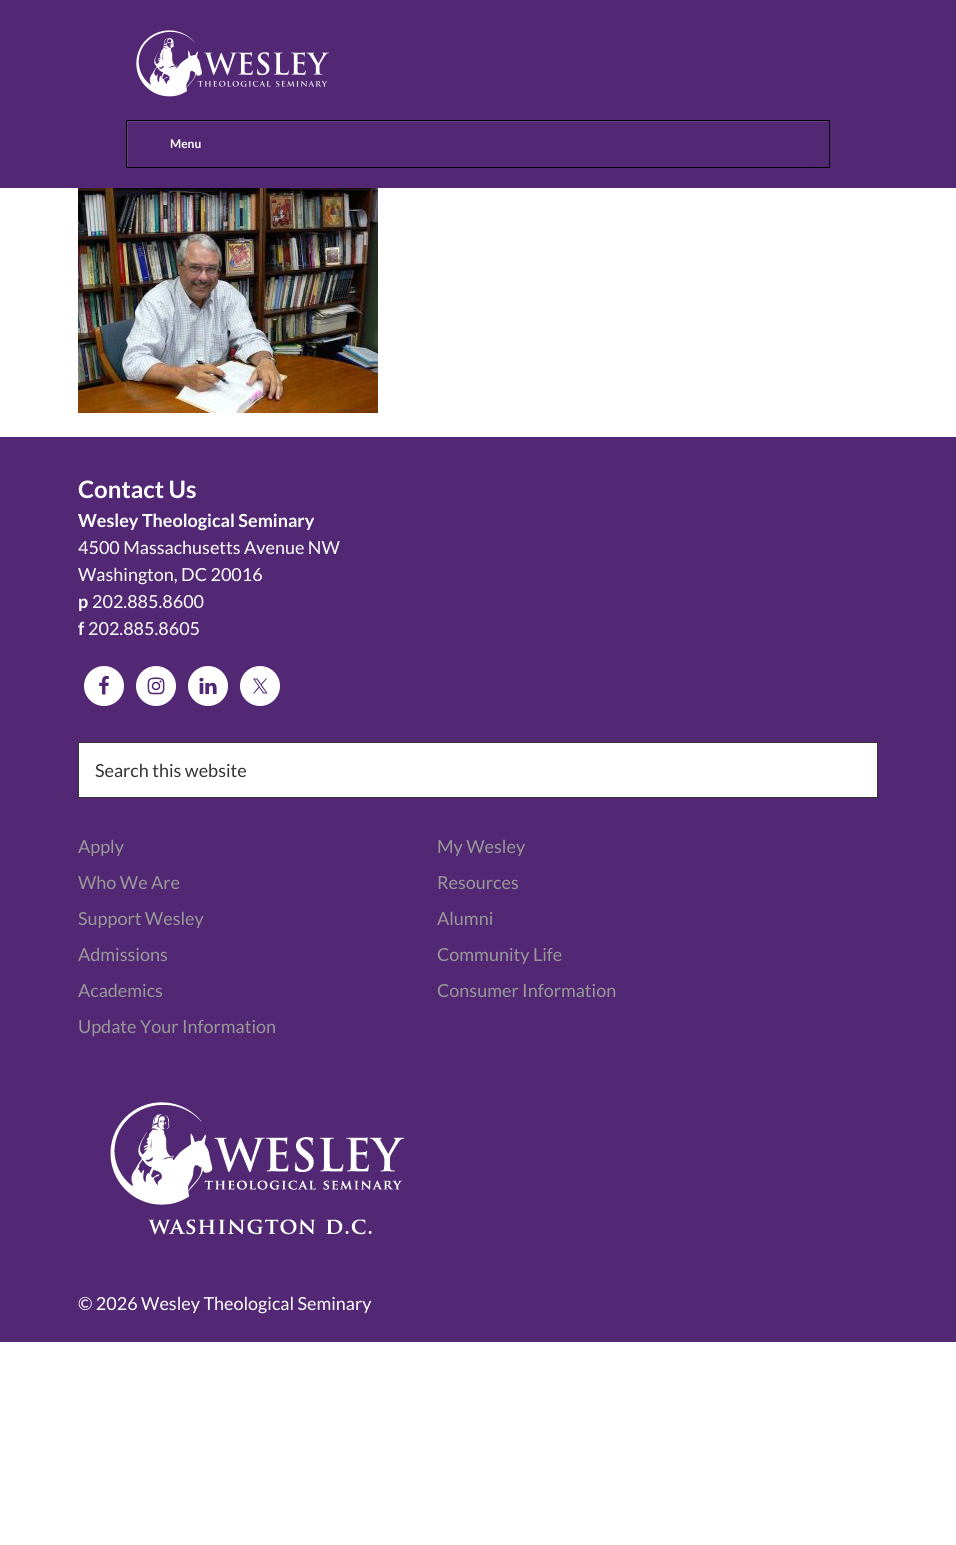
#include <cairo.h>
#include <math.h>
#include <stddef.h>

typedef struct { double x, y; const char *s; } line_t;

static void ink(cairo_t *ctx, unsigned color) {
    cairo_set_source_rgb(ctx, (color >> 16) / 255.0, (color >> 8 & 255) / 255.0, (color & 255) / 255.0);
}

static void paste(cairo_t *ctx, const char *path, double x, double y, double w, double h) {
    cairo_surface_t *image = cairo_image_surface_create_from_png(path);
    cairo_save(ctx);
    cairo_set_source_surface(ctx, image, x, y);
    cairo_rectangle(ctx, x, y, w, h);
    cairo_fill(ctx);
    cairo_restore(ctx);
    cairo_surface_destroy(image);
}

int main(void) {
    cairo_surface_t *surface = cairo_image_surface_create(CAIRO_FORMAT_RGB24, 956, 1545);
    cairo_t *ctx = cairo_create(surface);
    cairo_font_options_t *options = cairo_font_options_create();
    cairo_font_options_set_hint_metrics(options, CAIRO_HINT_METRICS_OFF);
    cairo_font_options_set_hint_style(options, CAIRO_HINT_STYLE_NONE);
    cairo_set_font_options(ctx, options);
    cairo_set_miter_limit(ctx, 4);
    ink(ctx, 0xFFFFFF);
    cairo_paint(ctx);
    ink(ctx, 0x522773);
    cairo_rectangle(ctx, 0, 0, 956, 188);
    cairo_fill(ctx);
    paste(ctx, "media/1.png", 136, 30, 193, 67);
    cairo_save(ctx);
    cairo_rectangle(ctx, 127, 121, 702, 46);
    cairo_clip(ctx);
    ink(ctx, 0x633D81);
    cairo_set_fill_rule(ctx, CAIRO_FILL_RULE_EVEN_ODD);
    cairo_new_path(ctx);
    cairo_move_to(ctx, 28, 22);
    cairo_line_to(ctx, 928, 22);
    cairo_line_to(ctx, 928, 266);
    cairo_line_to(ctx, 28, 266);
    cairo_close_path(ctx);
    cairo_move_to(ctx, 128, 122);
    cairo_line_to(ctx, 830, 122);
    cairo_line_to(ctx, 830, 168);
    cairo_line_to(ctx, 128, 168);
    cairo_close_path(ctx);
    cairo_fill(ctx);
    cairo_restore(ctx);
    cairo_rectangle(ctx, 126.5, 120.5, 703, 47);
    ink(ctx, 0x000000);
    cairo_set_line_width(ctx, 1);
    cairo_stroke(ctx);
    cairo_select_font_face(ctx, "Lato", CAIRO_FONT_SLANT_NORMAL, CAIRO_FONT_WEIGHT_BOLD);
    cairo_set_font_size(ctx, 12);
    ink(ctx, 0xFFFFFF);
    cairo_move_to(ctx, 170, 148);
    cairo_show_text(ctx, "Menu");
    paste(ctx, "media/2.png", 78, 188, 300, 225);
    ink(ctx, 0x522773);
    cairo_rectangle(ctx, 0, 437, 956, 905);
    cairo_fill(ctx);
    cairo_set_font_size(ctx, 24);
    ink(ctx, 0xFFFFFF);
    cairo_move_to(ctx, 78, 498);
    cairo_show_text(ctx, "Contact Us");
    cairo_set_font_size(ctx, 18);
    cairo_move_to(ctx, 78, 527);
    cairo_show_text(ctx, "Wesley Theological Seminary");
    cairo_select_font_face(ctx, "Lato", CAIRO_FONT_SLANT_NORMAL, CAIRO_FONT_WEIGHT_NORMAL);
    cairo_move_to(ctx, 78, 554);
    cairo_show_text(ctx, "4500 Massachusetts Avenue NW");
    cairo_move_to(ctx, 78, 581);
    cairo_show_text(ctx, "Washington, DC 20016");
    cairo_select_font_face(ctx, "Lato", CAIRO_FONT_SLANT_NORMAL, CAIRO_FONT_WEIGHT_BOLD);
    cairo_move_to(ctx, 78, 608);
    cairo_show_text(ctx, "p");
    cairo_select_font_face(ctx, "Lato", CAIRO_FONT_SLANT_NORMAL, CAIRO_FONT_WEIGHT_NORMAL);
    cairo_move_to(ctx, 92, 608);
    cairo_show_text(ctx, "202.885.8600");
    cairo_select_font_face(ctx, "Lato", CAIRO_FONT_SLANT_NORMAL, CAIRO_FONT_WEIGHT_BOLD);
    cairo_move_to(ctx, 78, 635);
    cairo_show_text(ctx, "f");
    cairo_select_font_face(ctx, "Lato", CAIRO_FONT_SLANT_NORMAL, CAIRO_FONT_WEIGHT_NORMAL);
    cairo_move_to(ctx, 88, 635);
    cairo_show_text(ctx, "202.885.8605");
    cairo_new_path(ctx);
    cairo_arc(ctx, 104, 686, 20, 0, 2 * M_PI);
    cairo_fill(ctx);
    paste(ctx, "media/3.png", 99, 676, 10, 19);
    cairo_arc(ctx, 156, 686, 20, 0, 2 * M_PI);
    cairo_fill(ctx);
    paste(ctx, "media/4.png", 147, 677, 18, 18);
    cairo_arc(ctx, 208, 686, 20, 0, 2 * M_PI);
    cairo_fill(ctx);
    paste(ctx, "media/5.png", 199, 677, 18, 17);
    cairo_arc(ctx, 260, 686, 20, 0, 2 * M_PI);
    cairo_fill(ctx);
    paste(ctx, "media/6.png", 253, 678, 15, 16);
    cairo_rectangle(ctx, 78.5, 742.5, 799, 55);
    cairo_fill_preserve(ctx);
    ink(ctx, 0x333333);
    cairo_stroke(ctx);
    cairo_move_to(ctx, 95, 777);
    cairo_show_text(ctx, "Search this website");
    ink(ctx, 0x999999);
    {
        static const line_t items[] = {
            {78, 853, "Apply"},
            {78, 889, "Who We Are"},
            {78, 925, "Support Wesley"},
            {78, 961, "Admissions"},
            {78, 997, "Academics"},
            {437, 853, "My Wesley"},
            {437, 889, "Resources"},
            {437, 925, "Alumni"},
            {437, 961, "Community Life"},
            {437, 997, "Consumer Information"},
            {78, 1033, "Update Your Information"},
        };
        for (size_t i = 0; i < sizeof items / sizeof *items; i++) {
            cairo_move_to(ctx, items[i].x, items[i].y);
            cairo_show_text(ctx, items[i].s);
        }
    }
    paste(ctx, "media/7.png", 110, 1102, 295, 133);
    ink(ctx, 0xFFFFFF);
    cairo_move_to(ctx, 78, 1310);
    cairo_show_text(ctx, "© 2026 Wesley Theological Seminary");
    cairo_surface_write_to_png(surface, "image.png");
    cairo_font_options_destroy(options);
    cairo_destroy(ctx);
    cairo_surface_destroy(surface);
    return 0;
}
